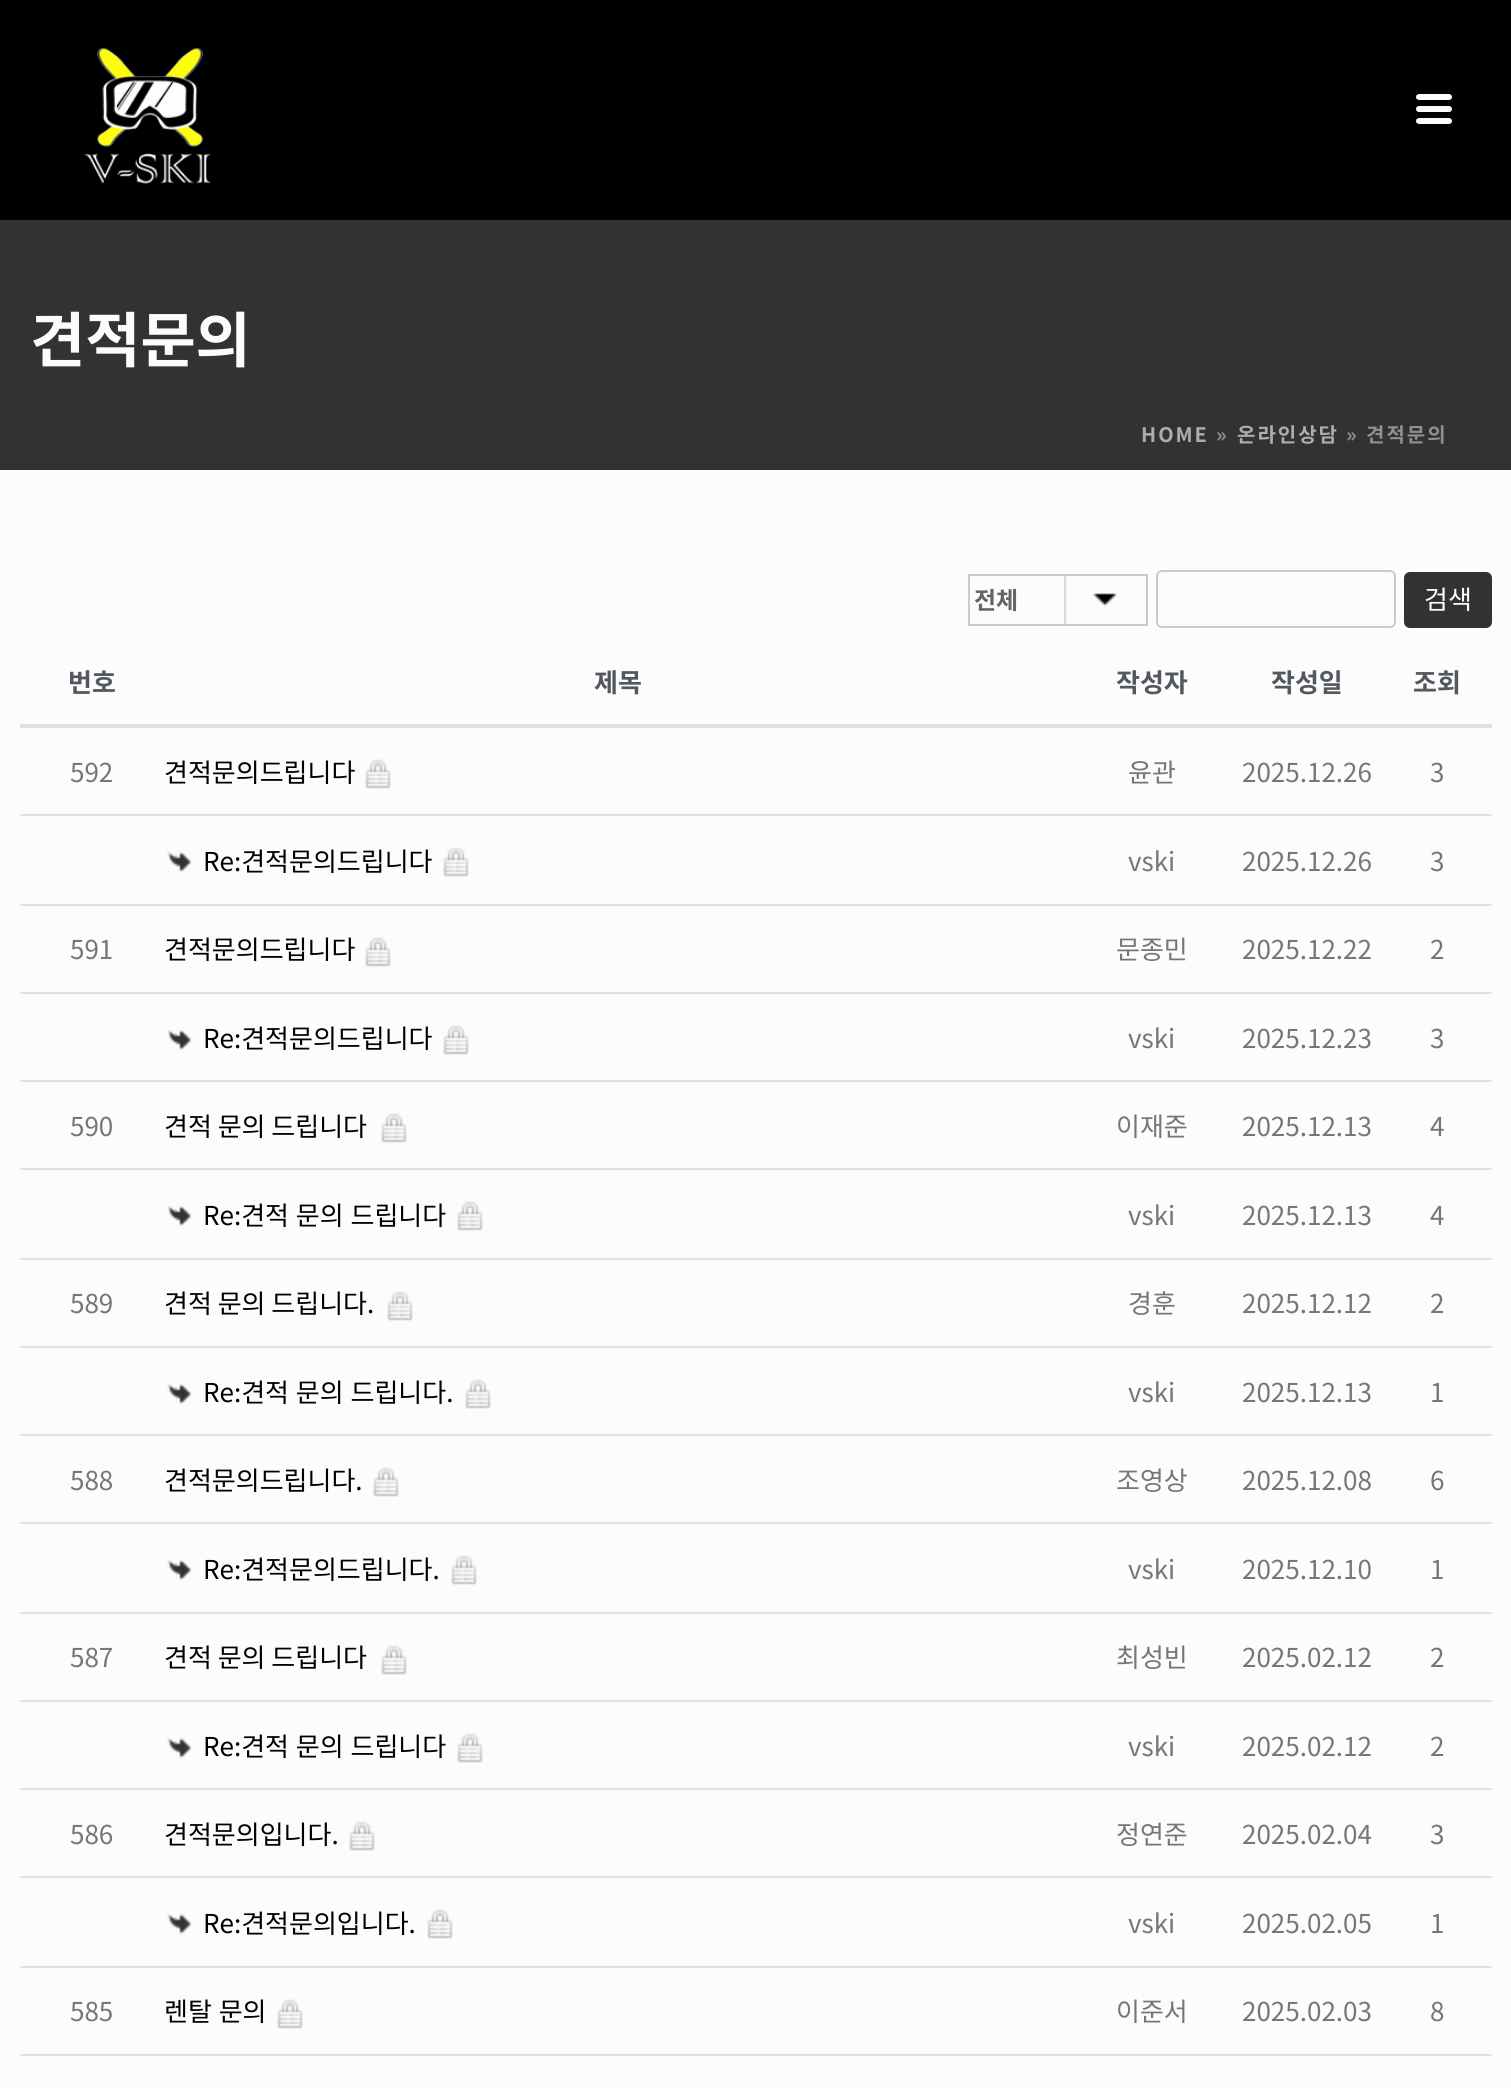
#include <cairo.h>
#include <math.h>
#include <stddef.h>

typedef struct { double x, y; const char *s; } line_t;

static void ink(cairo_t *ctx, unsigned color) {
    cairo_set_source_rgb(ctx, (color >> 16) / 255.0, (color >> 8 & 255) / 255.0, (color & 255) / 255.0);
}

static void write_spaced(cairo_t *ctx, double x, double y, const char *s, double letter, double word) {
    cairo_move_to(ctx, x, y);
    while (*s) {
        char ch[5] = {0};
        int n = 0;
        do ch[n++] = *s++; while ((*s & 0xC0) == 0x80);
        cairo_show_text(ctx, ch);
        cairo_rel_move_to(ctx, letter + word * (*ch == ' '), 0);
    }
}

static void round_path(cairo_t *ctx, double x, double y, double w, double h, double r) {
    cairo_new_sub_path(ctx);
    cairo_arc(ctx, x + w - r, y + h - r, r, 0, M_PI / 2);
    cairo_arc(ctx, x + r, y + h - r, r, M_PI / 2, M_PI);
    cairo_arc(ctx, x + r, y + r, r, M_PI, 1.5 * M_PI);
    cairo_arc(ctx, x + w - r, y + r, r, 1.5 * M_PI, 2 * M_PI);
    cairo_close_path(ctx);
}

static void paste(cairo_t *ctx, const char *path, double x, double y, double w, double h) {
    cairo_surface_t *image = cairo_image_surface_create_from_png(path);
    cairo_save(ctx);
    cairo_set_source_surface(ctx, image, x, y);
    cairo_rectangle(ctx, x, y, w, h);
    cairo_fill(ctx);
    cairo_restore(ctx);
    cairo_surface_destroy(image);
}

int main(void) {
    cairo_surface_t *surface = cairo_image_surface_create(CAIRO_FORMAT_RGB24, 1511, 2088);
    cairo_t *ctx = cairo_create(surface);
    cairo_font_options_t *options = cairo_font_options_create();
    cairo_font_options_set_hint_metrics(options, CAIRO_HINT_METRICS_OFF);
    cairo_font_options_set_hint_style(options, CAIRO_HINT_STYLE_NONE);
    cairo_set_font_options(ctx, options);
    cairo_set_miter_limit(ctx, 4);
    ink(ctx, 0xFCFCFC);
    cairo_paint(ctx);
    ink(ctx, 0x000000);
    cairo_rectangle(ctx, 0, 0, 1511, 220);
    cairo_fill(ctx);
    paste(ctx, "media/1.png", 84, 48, 127, 136);
    ink(ctx, 0xFCFCFC);
    round_path(ctx, 1416, 94, 36, 6, 3);
    cairo_fill(ctx);
    round_path(ctx, 1416, 106, 36, 6, 3);
    cairo_fill(ctx);
    round_path(ctx, 1416, 118, 36, 6, 3);
    cairo_fill(ctx);
    ink(ctx, 0x323232);
    cairo_rectangle(ctx, 0, 220, 1511, 250);
    cairo_fill(ctx);
    cairo_select_font_face(ctx, "Noto Sans KR", CAIRO_FONT_SLANT_NORMAL, CAIRO_FONT_WEIGHT_BOLD);
    cairo_set_font_size(ctx, 60);
    ink(ctx, 0xFCFCFC);
    cairo_move_to(ctx, 30, 362);
    cairo_show_text(ctx, "견적문의");
    cairo_set_font_size(ctx, 20);
    ink(ctx, 0xADADAD);
    write_spaced(ctx, 1141, 442, "HOME", 2, 0);
    ink(ctx, 0x909090);
    write_spaced(ctx, 1216, 442, "»", 2, 0);
    ink(ctx, 0xADADAD);
    write_spaced(ctx, 1237, 442, "온라인상담", 2, 0);
    ink(ctx, 0x909090);
    write_spaced(ctx, 1346, 442, "»", 2, 0);
    write_spaced(ctx, 1366, 442, "견적문의", 2, 0);
    paste(ctx, "media/2.png", 1064, 576, 53, 48);
    cairo_rectangle(ctx, 969, 575, 178, 50);
    ink(ctx, 0xCACACA);
    cairo_stroke(ctx);
    cairo_set_font_size(ctx, 24);
    ink(ctx, 0x656565);
    cairo_move_to(ctx, 974, 609);
    cairo_show_text(ctx, "전체");
    round_path(ctx, 1157, 571, 238, 56, 5);
    ink(ctx, 0xCACACA);
    cairo_stroke(ctx);
    ink(ctx, 0x323232);
    round_path(ctx, 1404, 572, 88, 56, 6);
    cairo_fill(ctx);
    cairo_select_font_face(ctx, "Noto Sans KR", CAIRO_FONT_SLANT_NORMAL, CAIRO_FONT_WEIGHT_NORMAL);
    cairo_set_font_size(ctx, 26);
    ink(ctx, 0xFCFCFC);
    cairo_move_to(ctx, 1424, 609);
    cairo_show_text(ctx, "검색");
    cairo_select_font_face(ctx, "Noto Sans KR", CAIRO_FONT_SLANT_NORMAL, CAIRO_FONT_WEIGHT_BOLD);
    ink(ctx, 0x535760);
    {
        static const line_t items[] = {
            {68, 692, "번호"},
            {594, 692, "제목"},
            {1116, 692, "작성자"},
            {1271, 692, "작성일"},
        };
        for (size_t i = 0; i < sizeof items / sizeof *items; i++) {
            cairo_move_to(ctx, items[i].x, items[i].y);
            cairo_show_text(ctx, items[i].s);
        }
    }
    ink(ctx, 0xE1E1E1);
    cairo_rectangle(ctx, 20, 724, 1472, 4);
    cairo_fill(ctx);
    ink(ctx, 0x535760);
    cairo_move_to(ctx, 1413, 692);
    cairo_show_text(ctx, "조회");
    cairo_select_font_face(ctx, "Noto Sans KR", CAIRO_FONT_SLANT_NORMAL, CAIRO_FONT_WEIGHT_NORMAL);
    ink(ctx, 0x767676);
    cairo_move_to(ctx, 70, 782);
    cairo_show_text(ctx, "592");
    ink(ctx, 0x000000);
    cairo_move_to(ctx, 164, 782);
    cairo_show_text(ctx, "견적문의드립니다");
    paste(ctx, "media/3.png", 365, 759, 26, 30);
    ink(ctx, 0x767676);
    cairo_move_to(ctx, 1128, 782);
    cairo_show_text(ctx, "윤관");
    cairo_move_to(ctx, 1242, 782);
    cairo_show_text(ctx, "2025.12.26");
    ink(ctx, 0xE1E1E1);
    cairo_rectangle(ctx, 20, 814, 1472, 2);
    cairo_fill(ctx);
    ink(ctx, 0x767676);
    cairo_move_to(ctx, 1430, 782);
    cairo_show_text(ctx, "3");
    paste(ctx, "media/4.png", 167, 851, 25, 22);
    ink(ctx, 0x000000);
    cairo_move_to(ctx, 203, 871);
    cairo_show_text(ctx, "Re:견적문의드립니다");
    paste(ctx, "media/3.png", 443, 847, 26, 30);
    ink(ctx, 0x767676);
    cairo_move_to(ctx, 1128, 871);
    cairo_show_text(ctx, "vski");
    cairo_move_to(ctx, 1242, 871);
    cairo_show_text(ctx, "2025.12.26");
    ink(ctx, 0xE1E1E1);
    cairo_rectangle(ctx, 20, 904, 1472, 2);
    cairo_fill(ctx);
    ink(ctx, 0x767676);
    cairo_move_to(ctx, 1430, 871);
    cairo_show_text(ctx, "3");
    cairo_move_to(ctx, 70, 959);
    cairo_show_text(ctx, "591");
    ink(ctx, 0x000000);
    cairo_move_to(ctx, 164, 959);
    cairo_show_text(ctx, "견적문의드립니다");
    paste(ctx, "media/3.png", 365, 937, 26, 30);
    ink(ctx, 0x767676);
    cairo_move_to(ctx, 1116, 959);
    cairo_show_text(ctx, "문종민");
    cairo_move_to(ctx, 1242, 959);
    cairo_show_text(ctx, "2025.12.22");
    ink(ctx, 0xE1E1E1);
    cairo_rectangle(ctx, 20, 992, 1472, 2);
    cairo_fill(ctx);
    ink(ctx, 0x767676);
    cairo_move_to(ctx, 1430, 959);
    cairo_show_text(ctx, "2");
    paste(ctx, "media/4.png", 167, 1029, 25, 22);
    ink(ctx, 0x000000);
    cairo_move_to(ctx, 203, 1048);
    cairo_show_text(ctx, "Re:견적문의드립니다");
    paste(ctx, "media/3.png", 443, 1025, 26, 30);
    ink(ctx, 0x767676);
    cairo_move_to(ctx, 1128, 1048);
    cairo_show_text(ctx, "vski");
    cairo_move_to(ctx, 1242, 1048);
    cairo_show_text(ctx, "2025.12.23");
    ink(ctx, 0xE1E1E1);
    cairo_rectangle(ctx, 20, 1080, 1472, 2);
    cairo_fill(ctx);
    ink(ctx, 0x767676);
    cairo_move_to(ctx, 1430, 1048);
    cairo_show_text(ctx, "3");
    cairo_move_to(ctx, 70, 1136);
    cairo_show_text(ctx, "590");
    ink(ctx, 0x000000);
    cairo_move_to(ctx, 164, 1136);
    cairo_show_text(ctx, "견적 문의 드립니다");
    paste(ctx, "media/3.png", 381, 1113, 26, 30);
    ink(ctx, 0x767676);
    cairo_move_to(ctx, 1116, 1136);
    cairo_show_text(ctx, "이재준");
    cairo_move_to(ctx, 1242, 1136);
    cairo_show_text(ctx, "2025.12.13");
    ink(ctx, 0xE1E1E1);
    cairo_rectangle(ctx, 20, 1168, 1472, 2);
    cairo_fill(ctx);
    ink(ctx, 0x767676);
    cairo_move_to(ctx, 1430, 1136);
    cairo_show_text(ctx, "4");
    paste(ctx, "media/4.png", 167, 1205, 25, 22);
    ink(ctx, 0x000000);
    write_spaced(ctx, 203, 1225, "Re:견적 문의 드립니다", 0, 1);
    paste(ctx, "media/3.png", 457, 1201, 26, 30);
    ink(ctx, 0x767676);
    cairo_move_to(ctx, 1128, 1225);
    cairo_show_text(ctx, "vski");
    cairo_move_to(ctx, 1242, 1225);
    cairo_show_text(ctx, "2025.12.13");
    ink(ctx, 0xE1E1E1);
    cairo_rectangle(ctx, 20, 1258, 1472, 2);
    cairo_fill(ctx);
    ink(ctx, 0x767676);
    cairo_move_to(ctx, 1430, 1225);
    cairo_show_text(ctx, "4");
    cairo_move_to(ctx, 70, 1313);
    cairo_show_text(ctx, "589");
    ink(ctx, 0x000000);
    cairo_move_to(ctx, 164, 1313);
    cairo_show_text(ctx, "견적 문의 드립니다.");
    paste(ctx, "media/3.png", 387, 1291, 26, 30);
    ink(ctx, 0x767676);
    cairo_move_to(ctx, 1128, 1313);
    cairo_show_text(ctx, "경훈");
    cairo_move_to(ctx, 1242, 1313);
    cairo_show_text(ctx, "2025.12.12");
    ink(ctx, 0xE1E1E1);
    cairo_rectangle(ctx, 20, 1346, 1472, 2);
    cairo_fill(ctx);
    ink(ctx, 0x767676);
    cairo_move_to(ctx, 1430, 1313);
    cairo_show_text(ctx, "2");
    paste(ctx, "media/4.png", 167, 1383, 25, 22);
    ink(ctx, 0x000000);
    write_spaced(ctx, 203, 1402, "Re:견적 문의 드립니다.", 0, 1);
    paste(ctx, "media/3.png", 465, 1379, 26, 30);
    ink(ctx, 0x767676);
    cairo_move_to(ctx, 1128, 1402);
    cairo_show_text(ctx, "vski");
    cairo_move_to(ctx, 1242, 1402);
    cairo_show_text(ctx, "2025.12.13");
    ink(ctx, 0xE1E1E1);
    cairo_rectangle(ctx, 20, 1434, 1472, 2);
    cairo_fill(ctx);
    ink(ctx, 0x767676);
    cairo_move_to(ctx, 1430, 1402);
    cairo_show_text(ctx, "1");
    cairo_move_to(ctx, 70, 1490);
    cairo_show_text(ctx, "588");
    ink(ctx, 0x000000);
    cairo_move_to(ctx, 164, 1490);
    cairo_show_text(ctx, "견적문의드립니다.");
    paste(ctx, "media/3.png", 373, 1467, 26, 30);
    ink(ctx, 0x767676);
    cairo_move_to(ctx, 1116, 1490);
    cairo_show_text(ctx, "조영상");
    cairo_move_to(ctx, 1242, 1490);
    cairo_show_text(ctx, "2025.12.08");
    ink(ctx, 0xE1E1E1);
    cairo_rectangle(ctx, 20, 1522, 1472, 2);
    cairo_fill(ctx);
    ink(ctx, 0x767676);
    cairo_move_to(ctx, 1430, 1490);
    cairo_show_text(ctx, "6");
    paste(ctx, "media/4.png", 167, 1559, 25, 22);
    ink(ctx, 0x000000);
    cairo_move_to(ctx, 203, 1579);
    cairo_show_text(ctx, "Re:견적문의드립니다.");
    paste(ctx, "media/3.png", 451, 1555, 26, 30);
    ink(ctx, 0x767676);
    cairo_move_to(ctx, 1128, 1579);
    cairo_show_text(ctx, "vski");
    cairo_move_to(ctx, 1242, 1579);
    cairo_show_text(ctx, "2025.12.10");
    ink(ctx, 0xE1E1E1);
    cairo_rectangle(ctx, 20, 1612, 1472, 2);
    cairo_fill(ctx);
    ink(ctx, 0x767676);
    cairo_move_to(ctx, 1430, 1579);
    cairo_show_text(ctx, "1");
    cairo_move_to(ctx, 70, 1667);
    cairo_show_text(ctx, "587");
    ink(ctx, 0x000000);
    cairo_move_to(ctx, 164, 1667);
    cairo_show_text(ctx, "견적 문의 드립니다");
    paste(ctx, "media/3.png", 381, 1645, 26, 30);
    ink(ctx, 0x767676);
    cairo_move_to(ctx, 1116, 1667);
    cairo_show_text(ctx, "최성빈");
    cairo_move_to(ctx, 1242, 1667);
    cairo_show_text(ctx, "2025.02.12");
    ink(ctx, 0xE1E1E1);
    cairo_rectangle(ctx, 20, 1700, 1472, 2);
    cairo_fill(ctx);
    ink(ctx, 0x767676);
    cairo_move_to(ctx, 1430, 1667);
    cairo_show_text(ctx, "2");
    paste(ctx, "media/4.png", 167, 1737, 25, 22);
    ink(ctx, 0x000000);
    write_spaced(ctx, 203, 1756, "Re:견적 문의 드립니다", 0, 1);
    paste(ctx, "media/3.png", 457, 1733, 26, 30);
    ink(ctx, 0x767676);
    cairo_move_to(ctx, 1128, 1756);
    cairo_show_text(ctx, "vski");
    cairo_move_to(ctx, 1242, 1756);
    cairo_show_text(ctx, "2025.02.12");
    ink(ctx, 0xE1E1E1);
    cairo_rectangle(ctx, 20, 1788, 1472, 2);
    cairo_fill(ctx);
    ink(ctx, 0x767676);
    cairo_move_to(ctx, 1430, 1756);
    cairo_show_text(ctx, "2");
    cairo_move_to(ctx, 70, 1844);
    cairo_show_text(ctx, "586");
    ink(ctx, 0x000000);
    cairo_move_to(ctx, 164, 1844);
    cairo_show_text(ctx, "견적문의입니다.");
    paste(ctx, "media/3.png", 349, 1821, 26, 30);
    ink(ctx, 0x767676);
    cairo_move_to(ctx, 1116, 1844);
    cairo_show_text(ctx, "정연준");
    cairo_move_to(ctx, 1242, 1844);
    cairo_show_text(ctx, "2025.02.04");
    ink(ctx, 0xE1E1E1);
    cairo_rectangle(ctx, 20, 1876, 1472, 2);
    cairo_fill(ctx);
    ink(ctx, 0x767676);
    cairo_move_to(ctx, 1430, 1844);
    cairo_show_text(ctx, "3");
    paste(ctx, "media/4.png", 167, 1913, 25, 22);
    ink(ctx, 0x000000);
    cairo_move_to(ctx, 203, 1933);
    cairo_show_text(ctx, "Re:견적문의입니다.");
    paste(ctx, "media/3.png", 427, 1909, 26, 30);
    ink(ctx, 0x767676);
    cairo_move_to(ctx, 1128, 1933);
    cairo_show_text(ctx, "vski");
    cairo_move_to(ctx, 1242, 1933);
    cairo_show_text(ctx, "2025.02.05");
    ink(ctx, 0xE1E1E1);
    cairo_rectangle(ctx, 20, 1966, 1472, 2);
    cairo_fill(ctx);
    ink(ctx, 0x767676);
    cairo_move_to(ctx, 1430, 1933);
    cairo_show_text(ctx, "1");
    cairo_move_to(ctx, 70, 2021);
    cairo_show_text(ctx, "585");
    ink(ctx, 0x000000);
    write_spaced(ctx, 164, 2021, "렌탈 문의", 0, 1);
    paste(ctx, "media/3.png", 277, 1999, 26, 30);
    ink(ctx, 0x767676);
    cairo_move_to(ctx, 1116, 2021);
    cairo_show_text(ctx, "이준서");
    cairo_move_to(ctx, 1242, 2021);
    cairo_show_text(ctx, "2025.02.03");
    ink(ctx, 0xE1E1E1);
    cairo_rectangle(ctx, 20, 2054, 1472, 2);
    cairo_fill(ctx);
    ink(ctx, 0x767676);
    cairo_move_to(ctx, 1430, 2021);
    cairo_show_text(ctx, "8");
    paste(ctx, "media/5.png", 363, 2087, 10, 1);
    cairo_surface_write_to_png(surface, "image.png");
    cairo_font_options_destroy(options);
    cairo_destroy(ctx);
    cairo_surface_destroy(surface);
    return 0;
}
